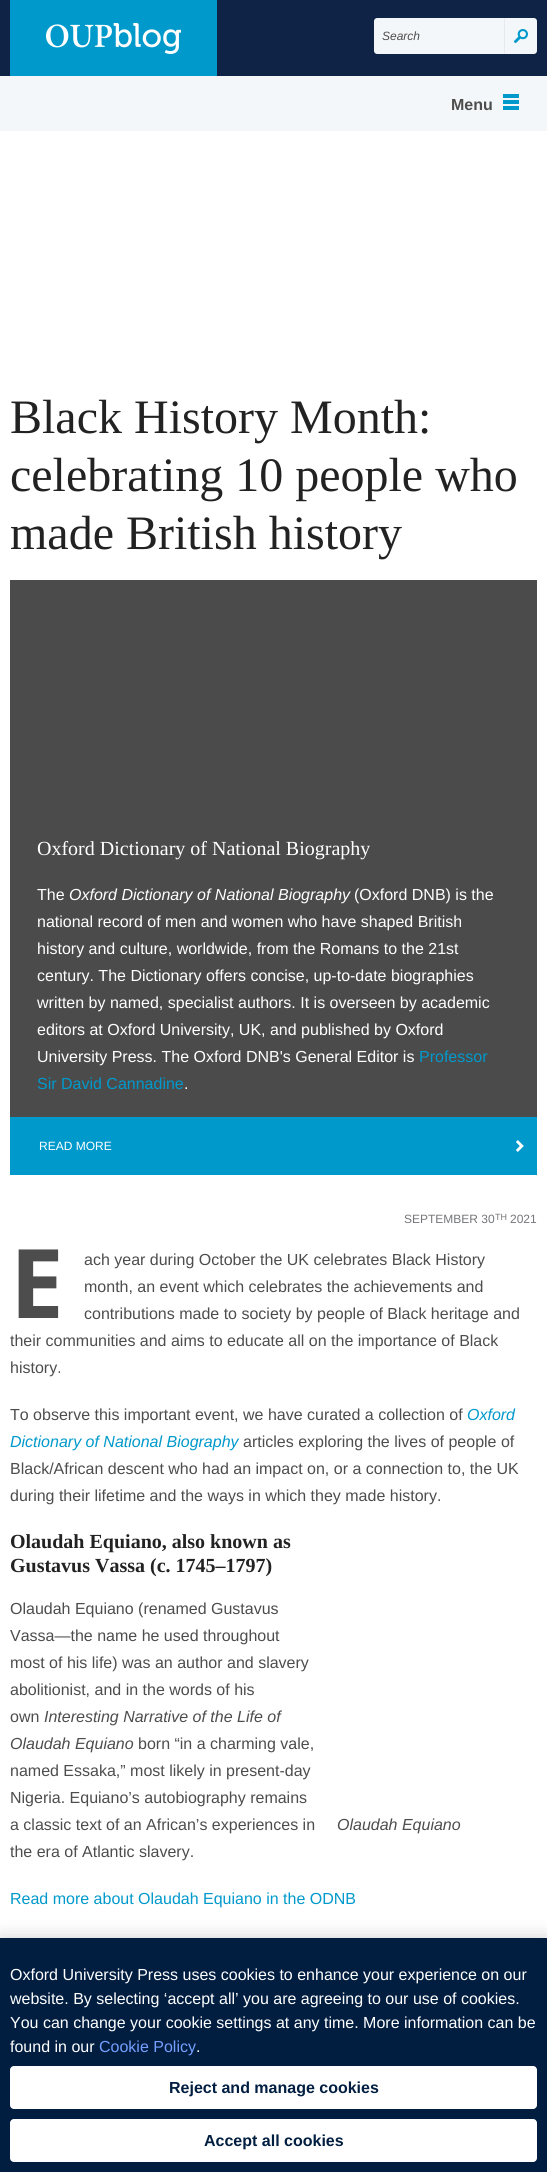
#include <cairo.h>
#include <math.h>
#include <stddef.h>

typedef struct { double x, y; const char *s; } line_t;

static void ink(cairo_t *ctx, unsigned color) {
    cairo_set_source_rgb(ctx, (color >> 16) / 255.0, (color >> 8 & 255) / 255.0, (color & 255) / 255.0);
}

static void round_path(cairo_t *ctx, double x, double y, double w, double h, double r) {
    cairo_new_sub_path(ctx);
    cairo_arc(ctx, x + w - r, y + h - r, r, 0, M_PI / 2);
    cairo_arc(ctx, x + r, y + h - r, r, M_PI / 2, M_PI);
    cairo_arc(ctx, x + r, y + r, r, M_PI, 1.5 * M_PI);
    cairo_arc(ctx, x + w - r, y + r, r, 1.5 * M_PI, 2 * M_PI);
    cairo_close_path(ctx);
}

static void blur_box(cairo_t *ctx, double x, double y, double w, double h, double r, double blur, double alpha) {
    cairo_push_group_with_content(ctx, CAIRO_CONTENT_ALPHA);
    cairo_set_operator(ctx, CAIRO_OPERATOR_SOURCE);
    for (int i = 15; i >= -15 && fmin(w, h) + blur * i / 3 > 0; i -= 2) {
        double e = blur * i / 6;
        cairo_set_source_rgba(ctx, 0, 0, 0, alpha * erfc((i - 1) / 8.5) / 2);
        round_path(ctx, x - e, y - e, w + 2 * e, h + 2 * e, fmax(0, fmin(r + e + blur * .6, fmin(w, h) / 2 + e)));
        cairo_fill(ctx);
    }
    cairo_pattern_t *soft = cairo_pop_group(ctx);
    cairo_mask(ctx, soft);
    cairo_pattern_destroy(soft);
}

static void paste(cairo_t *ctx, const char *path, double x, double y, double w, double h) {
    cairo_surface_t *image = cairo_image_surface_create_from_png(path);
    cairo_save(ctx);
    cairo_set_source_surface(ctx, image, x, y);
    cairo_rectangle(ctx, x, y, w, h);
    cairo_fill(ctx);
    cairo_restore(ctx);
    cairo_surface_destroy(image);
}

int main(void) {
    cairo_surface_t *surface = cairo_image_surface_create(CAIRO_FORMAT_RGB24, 547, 2172);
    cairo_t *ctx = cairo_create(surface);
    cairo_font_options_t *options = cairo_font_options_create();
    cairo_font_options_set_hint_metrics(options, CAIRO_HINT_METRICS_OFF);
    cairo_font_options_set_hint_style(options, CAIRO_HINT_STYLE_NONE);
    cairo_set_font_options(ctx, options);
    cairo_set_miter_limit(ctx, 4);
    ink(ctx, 0xFFFFFF);
    cairo_paint(ctx);
    ink(ctx, 0x0E2346);
    cairo_rectangle(ctx, 0, 0, 547, 76);
    cairo_fill(ctx);
    ink(ctx, 0x0099CC);
    cairo_rectangle(ctx, 10, 0, 207, 76);
    cairo_fill(ctx);
    paste(ctx, "media/1.png", 46, 23, 135, 31);
    ink(ctx, 0xF4F7F9);
    cairo_new_path(ctx);
    cairo_move_to(ctx, 377, 18);
    cairo_line_to(ctx, 504, 18);
    cairo_line_to(ctx, 504, 54);
    cairo_line_to(ctx, 377, 54);
    cairo_curve_to(ctx, 375.5, 54, 374, 52.5, 374, 51);
    cairo_line_to(ctx, 374, 21);
    cairo_curve_to(ctx, 374, 19.5, 375.5, 18, 377, 18);
    cairo_close_path(ctx);
    cairo_fill(ctx);
    cairo_select_font_face(ctx, "Liberation Sans", CAIRO_FONT_SLANT_ITALIC, CAIRO_FONT_WEIGHT_NORMAL);
    cairo_set_font_size(ctx, 12);
    ink(ctx, 0x4D4D4D);
    cairo_move_to(ctx, 382, 40);
    cairo_show_text(ctx, "Search");
    ink(ctx, 0xF4F7F9);
    cairo_new_path(ctx);
    cairo_move_to(ctx, 504, 18);
    cairo_line_to(ctx, 534, 18);
    cairo_curve_to(ctx, 535.5, 18, 537, 19.5, 537, 21);
    cairo_line_to(ctx, 537, 51);
    cairo_curve_to(ctx, 537, 52.5, 535.5, 54, 534, 54);
    cairo_line_to(ctx, 504, 54);
    cairo_close_path(ctx);
    cairo_fill(ctx);
    ink(ctx, 0xE8EAEA);
    cairo_rectangle(ctx, 504, 18, 1, 36);
    cairo_fill(ctx);
    paste(ctx, "media/2.png", 514, 29, 14, 14);
    ink(ctx, 0xF4F7F9);
    cairo_rectangle(ctx, 0, 76, 547, 55);
    cairo_fill(ctx);
    cairo_select_font_face(ctx, "Liberation Sans", CAIRO_FONT_SLANT_NORMAL, CAIRO_FONT_WEIGHT_BOLD);
    cairo_set_font_size(ctx, 16);
    ink(ctx, 0x4D4D4D);
    cairo_move_to(ctx, 451, 110);
    cairo_show_text(ctx, "Menu");
    paste(ctx, "media/3.png", 503, 94, 16, 16);
    cairo_select_font_face(ctx, "Liberation Serif", CAIRO_FONT_SLANT_NORMAL, CAIRO_FONT_WEIGHT_NORMAL);
    cairo_set_font_size(ctx, 48);
    ink(ctx, 0x222222);
    {
        static const line_t items[] = {
            {10, 433, "Black History Month:"},
            {10, 491, "celebrating 10 people who"},
            {10, 549, "made British history"},
        };
        for (size_t i = 0; i < sizeof items / sizeof *items; i++) {
            cairo_move_to(ctx, items[i].x, items[i].y);
            cairo_show_text(ctx, items[i].s);
        }
    }
    ink(ctx, 0x4B4B4B);
    cairo_rectangle(ctx, 10, 580, 527, 537);
    cairo_fill(ctx);
    cairo_set_font_size(ctx, 20);
    ink(ctx, 0xFFFFFF);
    cairo_move_to(ctx, 37, 855);
    cairo_show_text(ctx, "Oxford Dictionary of National Biography");
    cairo_select_font_face(ctx, "Liberation Sans", CAIRO_FONT_SLANT_NORMAL, CAIRO_FONT_WEIGHT_NORMAL);
    cairo_set_font_size(ctx, 16);
    cairo_move_to(ctx, 37, 900);
    cairo_show_text(ctx, "The");
    cairo_select_font_face(ctx, "Liberation Sans", CAIRO_FONT_SLANT_ITALIC, CAIRO_FONT_WEIGHT_NORMAL);
    cairo_move_to(ctx, 69, 900);
    cairo_show_text(ctx, "Oxford Dictionary of National Biography");
    cairo_select_font_face(ctx, "Liberation Sans", CAIRO_FONT_SLANT_NORMAL, CAIRO_FONT_WEIGHT_NORMAL);
    {
        static const line_t items[] = {
            {354, 900, "(Oxford DNB) is the"},
            {37, 927, "national record of men and women who have shaped British"},
            {37, 954, "history and culture, worldwide, from the Romans to the 21st"},
            {37, 981, "century. The Dictionary offers concise, up-to-date biographies"},
            {37, 1008, "written by named, specialist authors. It is overseen by academic"},
            {37, 1035, "editors at Oxford University, UK, and published by Oxford"},
            {37, 1062, "University Press. The Oxford DNB's General Editor is"},
        };
        for (size_t i = 0; i < sizeof items / sizeof *items; i++) {
            cairo_move_to(ctx, items[i].x, items[i].y);
            cairo_show_text(ctx, items[i].s);
        }
    }
    ink(ctx, 0x0099CC);
    cairo_move_to(ctx, 419, 1062);
    cairo_show_text(ctx, "Professor");
    cairo_move_to(ctx, 37, 1089);
    cairo_show_text(ctx, "Sir David Cannadine");
    ink(ctx, 0xFFFFFF);
    cairo_move_to(ctx, 184, 1089);
    cairo_show_text(ctx, ".");
    ink(ctx, 0x0099CC);
    cairo_rectangle(ctx, 10, 1117, 527, 58);
    cairo_fill(ctx);
    cairo_set_font_size(ctx, 12);
    ink(ctx, 0xFFFFFF);
    cairo_move_to(ctx, 39, 1150);
    cairo_show_text(ctx, "READ MORE");
    paste(ctx, "media/4.png", 516, 1140, 8, 12);
    ink(ctx, 0x757679);
    cairo_move_to(ctx, 404, 1223);
    cairo_show_text(ctx, "SEPTEMBER 30");
    cairo_set_font_size(ctx, 9);
    cairo_move_to(ctx, 495, 1220);
    cairo_show_text(ctx, "TH");
    cairo_set_font_size(ctx, 12);
    cairo_move_to(ctx, 510, 1223);
    cairo_show_text(ctx, "2021");
    cairo_select_font_face(ctx, "Noto Sans", CAIRO_FONT_SLANT_NORMAL, CAIRO_FONT_WEIGHT_BOLD);
    cairo_set_font_size(ctx, 96);
    ink(ctx, 0x4D4D4D);
    cairo_move_to(ctx, 10, 1318);
    cairo_show_text(ctx, "E");
    cairo_select_font_face(ctx, "Liberation Sans", CAIRO_FONT_SLANT_NORMAL, CAIRO_FONT_WEIGHT_NORMAL);
    cairo_set_font_size(ctx, 16);
    {
        static const line_t items[] = {
            {84, 1265, "ach year during October the UK celebrates Black History"},
            {84, 1292, "month, an event which celebrates the achievements and"},
            {84, 1319, "contributions made to society by people of Black heritage and"},
            {10, 1346, "their communities and aims to educate all on the importance of Black"},
            {10, 1373, "history."},
            {10, 1420, "To observe this important event, we have curated a collection of"},
        };
        for (size_t i = 0; i < sizeof items / sizeof *items; i++) {
            cairo_move_to(ctx, items[i].x, items[i].y);
            cairo_show_text(ctx, items[i].s);
        }
    }
    cairo_select_font_face(ctx, "Liberation Sans", CAIRO_FONT_SLANT_ITALIC, CAIRO_FONT_WEIGHT_NORMAL);
    ink(ctx, 0x0099CC);
    cairo_move_to(ctx, 467, 1420);
    cairo_show_text(ctx, "Oxford");
    cairo_move_to(ctx, 10, 1447);
    cairo_show_text(ctx, "Dictionary of National Biography");
    cairo_select_font_face(ctx, "Liberation Sans", CAIRO_FONT_SLANT_NORMAL, CAIRO_FONT_WEIGHT_NORMAL);
    ink(ctx, 0x4D4D4D);
    {
        static const line_t items[] = {
            {243, 1447, "articles exploring the lives of people of"},
            {10, 1474, "Black/African descent who had an impact on, or a connection to, the UK"},
            {10, 1501, "during their lifetime and the ways in which they made history."},
        };
        for (size_t i = 0; i < sizeof items / sizeof *items; i++) {
            cairo_move_to(ctx, items[i].x, items[i].y);
            cairo_show_text(ctx, items[i].s);
        }
    }
    cairo_select_font_face(ctx, "Liberation Serif", CAIRO_FONT_SLANT_NORMAL, CAIRO_FONT_WEIGHT_BOLD);
    cairo_set_font_size(ctx, 20);
    ink(ctx, 0x222222);
    cairo_move_to(ctx, 10, 1548);
    cairo_show_text(ctx, "Olaudah Equiano, also known as");
    cairo_move_to(ctx, 10, 1572);
    cairo_show_text(ctx, "Gustavus Vassa (c. 1745–1797)");
    cairo_select_font_face(ctx, "Liberation Sans", CAIRO_FONT_SLANT_NORMAL, CAIRO_FONT_WEIGHT_NORMAL);
    cairo_set_font_size(ctx, 16);
    ink(ctx, 0x4D4D4D);
    {
        static const line_t items[] = {
            {10, 1614, "Olaudah Equiano (renamed Gustavus"},
            {10, 1641, "Vassa—the name he used throughout"},
            {10, 1668, "most of his life) was an author and slavery"},
            {10, 1695, "abolitionist, and in the words of his"},
            {10, 1722, "own"},
        };
        for (size_t i = 0; i < sizeof items / sizeof *items; i++) {
            cairo_move_to(ctx, items[i].x, items[i].y);
            cairo_show_text(ctx, items[i].s);
        }
    }
    cairo_select_font_face(ctx, "Liberation Sans", CAIRO_FONT_SLANT_ITALIC, CAIRO_FONT_WEIGHT_NORMAL);
    cairo_move_to(ctx, 44, 1722);
    cairo_show_text(ctx, "Interesting Narrative of the Life of");
    cairo_move_to(ctx, 10, 1749);
    cairo_show_text(ctx, "Olaudah Equiano");
    cairo_select_font_face(ctx, "Liberation Sans", CAIRO_FONT_SLANT_NORMAL, CAIRO_FONT_WEIGHT_NORMAL);
    {
        static const line_t items[] = {
            {138, 1749, "born “in a charming vale,"},
            {10, 1776, "named Essaka,” most likely in present-day"},
            {10, 1803, "Nigeria. Equiano’s autobiography remains"},
            {10, 1830, "a classic text of an African’s experiences in"},
            {10, 1857, "the era of Atlantic slavery."},
        };
        for (size_t i = 0; i < sizeof items / sizeof *items; i++) {
            cairo_move_to(ctx, items[i].x, items[i].y);
            cairo_show_text(ctx, items[i].s);
        }
    }
    cairo_select_font_face(ctx, "Liberation Sans", CAIRO_FONT_SLANT_ITALIC, CAIRO_FONT_WEIGHT_NORMAL);
    cairo_move_to(ctx, 337, 1830);
    cairo_show_text(ctx, "Olaudah Equiano");
    cairo_select_font_face(ctx, "Liberation Sans", CAIRO_FONT_SLANT_NORMAL, CAIRO_FONT_WEIGHT_NORMAL);
    ink(ctx, 0x0099CC);
    cairo_move_to(ctx, 10, 1904);
    cairo_show_text(ctx, "Read more about Olaudah Equiano in the ODNB");
    ink(ctx, 0x000000);
    blur_box(ctx, 0, 1938, 547, 234, 0, 9, 0.2);
    ink(ctx, 0x011E41);
    cairo_rectangle(ctx, 0, 1938, 547, 234);
    cairo_fill(ctx);
    ink(ctx, 0xFFFFFF);
    {
        static const line_t items[] = {
            {10, 1980, "Oxford University Press uses cookies to enhance your experience on our"},
            {10, 2004, "website. By selecting ‘accept all’ you are agreeing to our use of cookies."},
            {10, 2028, "You can change your cookie settings at any time. More information can be"},
            {10, 2052, "found in our"},
        };
        for (size_t i = 0; i < sizeof items / sizeof *items; i++) {
            cairo_move_to(ctx, items[i].x, items[i].y);
            cairo_show_text(ctx, items[i].s);
        }
    }
    ink(ctx, 0x759FFF);
    cairo_move_to(ctx, 99, 2052);
    cairo_show_text(ctx, "Cookie Policy");
    ink(ctx, 0xFFFFFF);
    cairo_move_to(ctx, 196, 2052);
    cairo_show_text(ctx, ".");
    round_path(ctx, 10, 2066, 527, 43, 4);
    cairo_fill(ctx);
    cairo_select_font_face(ctx, "Liberation Sans", CAIRO_FONT_SLANT_NORMAL, CAIRO_FONT_WEIGHT_BOLD);
    ink(ctx, 0x011E41);
    cairo_move_to(ctx, 169, 2093);
    cairo_show_text(ctx, "Reject and manage cookies");
    ink(ctx, 0xFFFFFF);
    round_path(ctx, 10, 2119, 527, 43, 4);
    cairo_fill(ctx);
    ink(ctx, 0x011E41);
    cairo_move_to(ctx, 204, 2146);
    cairo_show_text(ctx, "Accept all cookies");
    cairo_surface_write_to_png(surface, "image.png");
    cairo_font_options_destroy(options);
    cairo_destroy(ctx);
    cairo_surface_destroy(surface);
    return 0;
}
